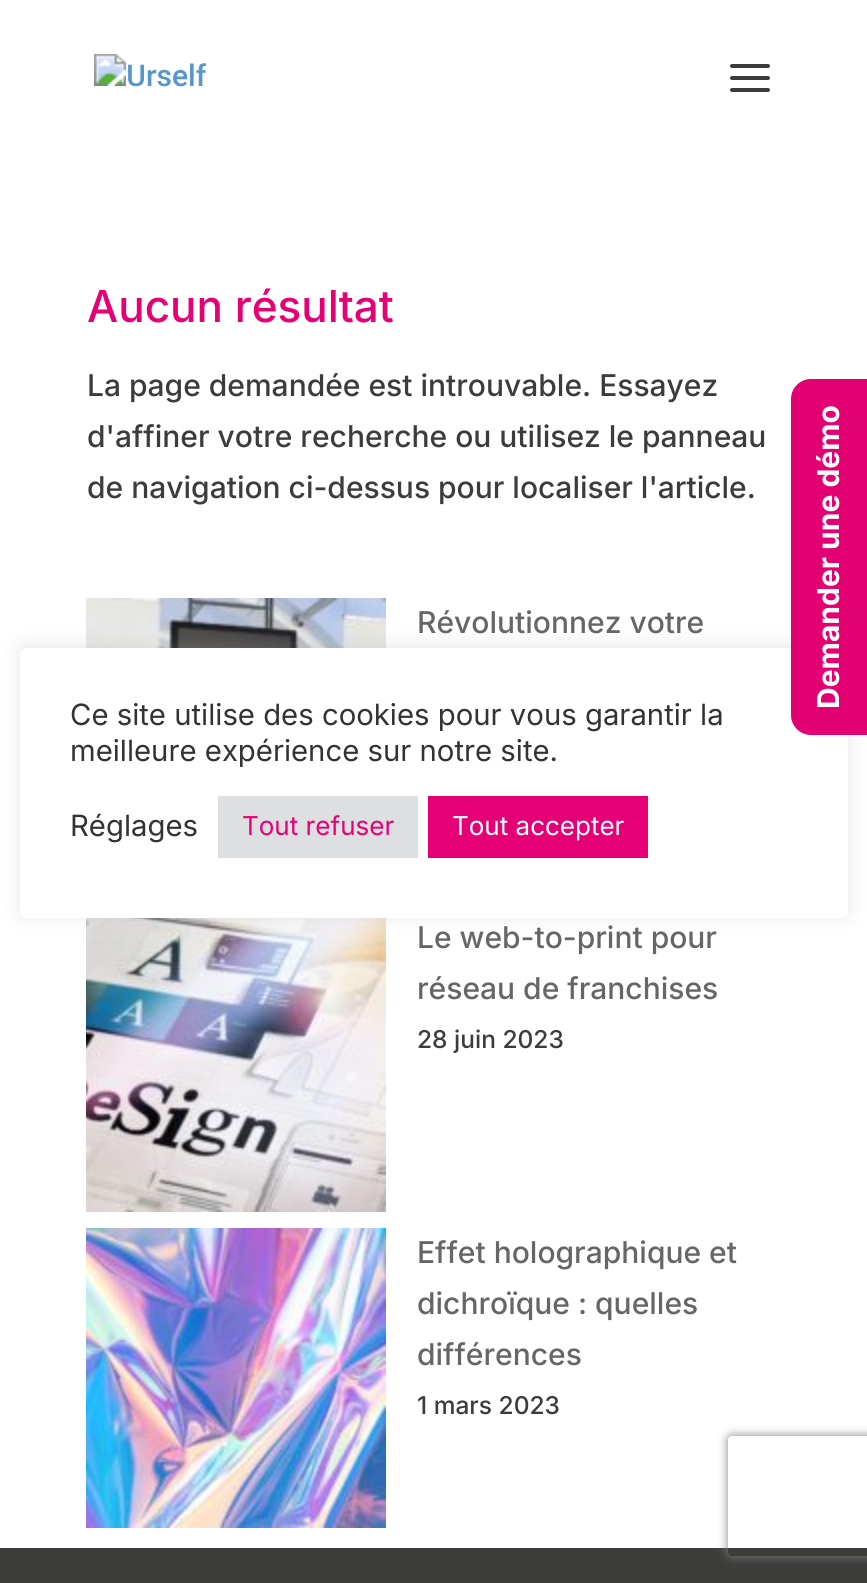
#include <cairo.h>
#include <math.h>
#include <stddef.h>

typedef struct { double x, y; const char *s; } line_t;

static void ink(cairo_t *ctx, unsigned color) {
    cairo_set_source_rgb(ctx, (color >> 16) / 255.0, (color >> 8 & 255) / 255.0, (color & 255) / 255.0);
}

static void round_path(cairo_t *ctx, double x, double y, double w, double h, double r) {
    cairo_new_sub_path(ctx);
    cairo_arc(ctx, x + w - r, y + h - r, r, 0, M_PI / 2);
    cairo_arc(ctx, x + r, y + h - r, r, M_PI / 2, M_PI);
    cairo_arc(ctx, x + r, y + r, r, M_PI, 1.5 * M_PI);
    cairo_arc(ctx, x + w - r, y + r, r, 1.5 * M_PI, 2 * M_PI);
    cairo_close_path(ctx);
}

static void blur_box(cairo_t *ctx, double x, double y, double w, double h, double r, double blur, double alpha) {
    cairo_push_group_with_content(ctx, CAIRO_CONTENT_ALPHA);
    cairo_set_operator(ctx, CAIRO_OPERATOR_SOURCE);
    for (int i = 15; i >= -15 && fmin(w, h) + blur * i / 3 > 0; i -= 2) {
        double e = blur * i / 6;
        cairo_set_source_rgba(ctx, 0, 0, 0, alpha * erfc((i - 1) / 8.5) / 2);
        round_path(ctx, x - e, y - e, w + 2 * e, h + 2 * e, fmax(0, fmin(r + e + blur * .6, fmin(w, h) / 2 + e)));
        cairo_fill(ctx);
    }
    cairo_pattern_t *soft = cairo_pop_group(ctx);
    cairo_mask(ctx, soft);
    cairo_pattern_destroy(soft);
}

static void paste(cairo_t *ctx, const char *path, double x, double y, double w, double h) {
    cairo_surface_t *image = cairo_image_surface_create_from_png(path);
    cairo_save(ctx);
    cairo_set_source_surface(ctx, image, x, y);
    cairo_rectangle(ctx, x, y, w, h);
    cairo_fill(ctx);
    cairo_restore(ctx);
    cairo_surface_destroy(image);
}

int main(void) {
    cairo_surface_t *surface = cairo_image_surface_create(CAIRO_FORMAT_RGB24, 867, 1583);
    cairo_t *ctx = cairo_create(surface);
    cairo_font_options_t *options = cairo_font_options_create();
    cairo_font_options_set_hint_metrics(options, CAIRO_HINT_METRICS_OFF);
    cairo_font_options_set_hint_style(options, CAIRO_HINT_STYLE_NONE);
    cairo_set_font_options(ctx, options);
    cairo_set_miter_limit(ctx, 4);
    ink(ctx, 0xFFFFFF);
    cairo_paint(ctx);
    paste(ctx, "media/1.png", 94, 54, 112, 33);
    paste(ctx, "media/2.png", 730, 64, 40, 28);
    cairo_select_font_face(ctx, "Inter Medium", CAIRO_FONT_SLANT_NORMAL, CAIRO_FONT_WEIGHT_NORMAL);
    cairo_set_font_size(ctx, 44);
    ink(ctx, 0xE50076);
    cairo_move_to(ctx, 87, 322);
    cairo_show_text(ctx, "Aucun résultat");
    cairo_set_font_size(ctx, 30);
    ink(ctx, 0x3C3C3B);
    {
        static const line_t items[] = {
            {87, 396, "La page demandée est introuvable. Essayez"},
            {87, 447, "d'affiner votre recherche ou utilisez le panneau"},
            {87, 498, "de navigation ci-dessus pour localiser l'article."},
        };
        for (size_t i = 0; i < sizeof items / sizeof *items; i++) {
            cairo_move_to(ctx, items[i].x, items[i].y);
            cairo_show_text(ctx, items[i].s);
        }
    }
    paste(ctx, "media/3.png", 86, 598, 300, 50);
    ink(ctx, 0x666666);
    cairo_move_to(ctx, 417, 633);
    cairo_show_text(ctx, "Révolutionnez votre");
    paste(ctx, "media/4.png", 86, 918, 300, 294);
    cairo_move_to(ctx, 417, 948);
    cairo_show_text(ctx, "Le web-to-print pour");
    cairo_move_to(ctx, 417, 999);
    cairo_show_text(ctx, "réseau de franchises");
    cairo_set_font_size(ctx, 24.5);
    ink(ctx, 0x3C3C3B);
    cairo_move_to(ctx, 417, 1048);
    cairo_show_text(ctx, "28 juin 2023");
    paste(ctx, "media/5.png", 86, 1228, 300, 300);
    cairo_set_font_size(ctx, 30);
    ink(ctx, 0x666666);
    {
        static const line_t items[] = {
            {417, 1263, "Effet holographique et"},
            {417, 1314, "dichroïque : quelles"},
            {417, 1365, "différences"},
        };
        for (size_t i = 0; i < sizeof items / sizeof *items; i++) {
            cairo_move_to(ctx, items[i].x, items[i].y);
            cairo_show_text(ctx, items[i].s);
        }
    }
    cairo_set_font_size(ctx, 24.5);
    ink(ctx, 0x3C3C3B);
    cairo_move_to(ctx, 417, 1414);
    cairo_show_text(ctx, "1 mars 2023");
    cairo_rectangle(ctx, 0, 1548, 867, 35);
    cairo_fill(ctx);
    ink(ctx, 0xACABAB);
    blur_box(ctx, 20, 646, 828, 270, 6, 10, 0.3);
    ink(ctx, 0xFFFFFF);
    round_path(ctx, 20, 648, 828, 270, 6);
    cairo_fill(ctx);
    ink(ctx, 0xE20072);
    cairo_new_path(ctx);
    cairo_move_to(ctx, 791, 715);
    cairo_line_to(ctx, 791, 399);
    cairo_curve_to(ctx, 791, 388, 800, 379, 811, 379);
    cairo_line_to(ctx, 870, 379);
    cairo_line_to(ctx, 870, 735);
    cairo_line_to(ctx, 811, 735);
    cairo_curve_to(ctx, 800, 735, 791, 726, 791, 715);
    cairo_close_path(ctx);
    cairo_fill(ctx);
    cairo_select_font_face(ctx, "Inter", CAIRO_FONT_SLANT_NORMAL, CAIRO_FONT_WEIGHT_BOLD);
    cairo_set_font_size(ctx, 30);
    ink(ctx, 0xFFFFFF);
    cairo_save(ctx);
    cairo_translate(ctx, 839, 709);
    cairo_rotate(ctx, -90 * M_PI / 180);
    cairo_move_to(ctx, 0, 0);
    cairo_show_text(ctx, "Demander une démo");
    cairo_restore(ctx);
    cairo_select_font_face(ctx, "Inter", CAIRO_FONT_SLANT_NORMAL, CAIRO_FONT_WEIGHT_NORMAL);
    cairo_set_font_size(ctx, 29.3);
    ink(ctx, 0x333333);
    {
        static const line_t items[] = {
            {70, 725, "Ce site utilise des cookies pour vous garantir la"},
            {70, 761, "meilleure expérience sur notre site."},
            {70, 836, "Réglages"},
        };
        for (size_t i = 0; i < sizeof items / sizeof *items; i++) {
            cairo_move_to(ctx, items[i].x, items[i].y);
            cairo_show_text(ctx, items[i].s);
        }
    }
    ink(ctx, 0xDEDFE0);
    cairo_rectangle(ctx, 218, 796, 200, 62);
    cairo_fill(ctx);
    cairo_set_font_size(ctx, 26);
    ink(ctx, 0xE50076);
    cairo_move_to(ctx, 242, 835);
    cairo_show_text(ctx, "Tout refuser");
    cairo_rectangle(ctx, 428, 796, 220, 62);
    cairo_fill(ctx);
    ink(ctx, 0xFFFFFF);
    cairo_move_to(ctx, 452, 835);
    cairo_show_text(ctx, "Tout accepter");
    cairo_save(ctx);
    cairo_set_fill_rule(ctx, CAIRO_FILL_RULE_EVEN_ODD);
    cairo_new_path(ctx);
    cairo_move_to(ctx, 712, 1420);
    cairo_line_to(ctx, 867, 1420);
    cairo_line_to(ctx, 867, 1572);
    cairo_line_to(ctx, 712, 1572);
    cairo_close_path(ctx);
    cairo_move_to(ctx, 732, 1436);
    cairo_line_to(ctx, 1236, 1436);
    cairo_curve_to(ctx, 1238, 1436, 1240, 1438, 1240, 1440);
    cairo_line_to(ctx, 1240, 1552);
    cairo_curve_to(ctx, 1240, 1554, 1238, 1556, 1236, 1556);
    cairo_line_to(ctx, 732, 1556);
    cairo_curve_to(ctx, 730, 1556, 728, 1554, 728, 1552);
    cairo_line_to(ctx, 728, 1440);
    cairo_curve_to(ctx, 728, 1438, 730, 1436, 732, 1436);
    cairo_close_path(ctx);
    cairo_clip(ctx);
    ink(ctx, 0x808080);
    blur_box(ctx, 728, 1436, 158, 120, 4, 5, 1);
    cairo_restore(ctx);
    cairo_surface_write_to_png(surface, "image.png");
    cairo_font_options_destroy(options);
    cairo_destroy(ctx);
    cairo_surface_destroy(surface);
    return 0;
}
